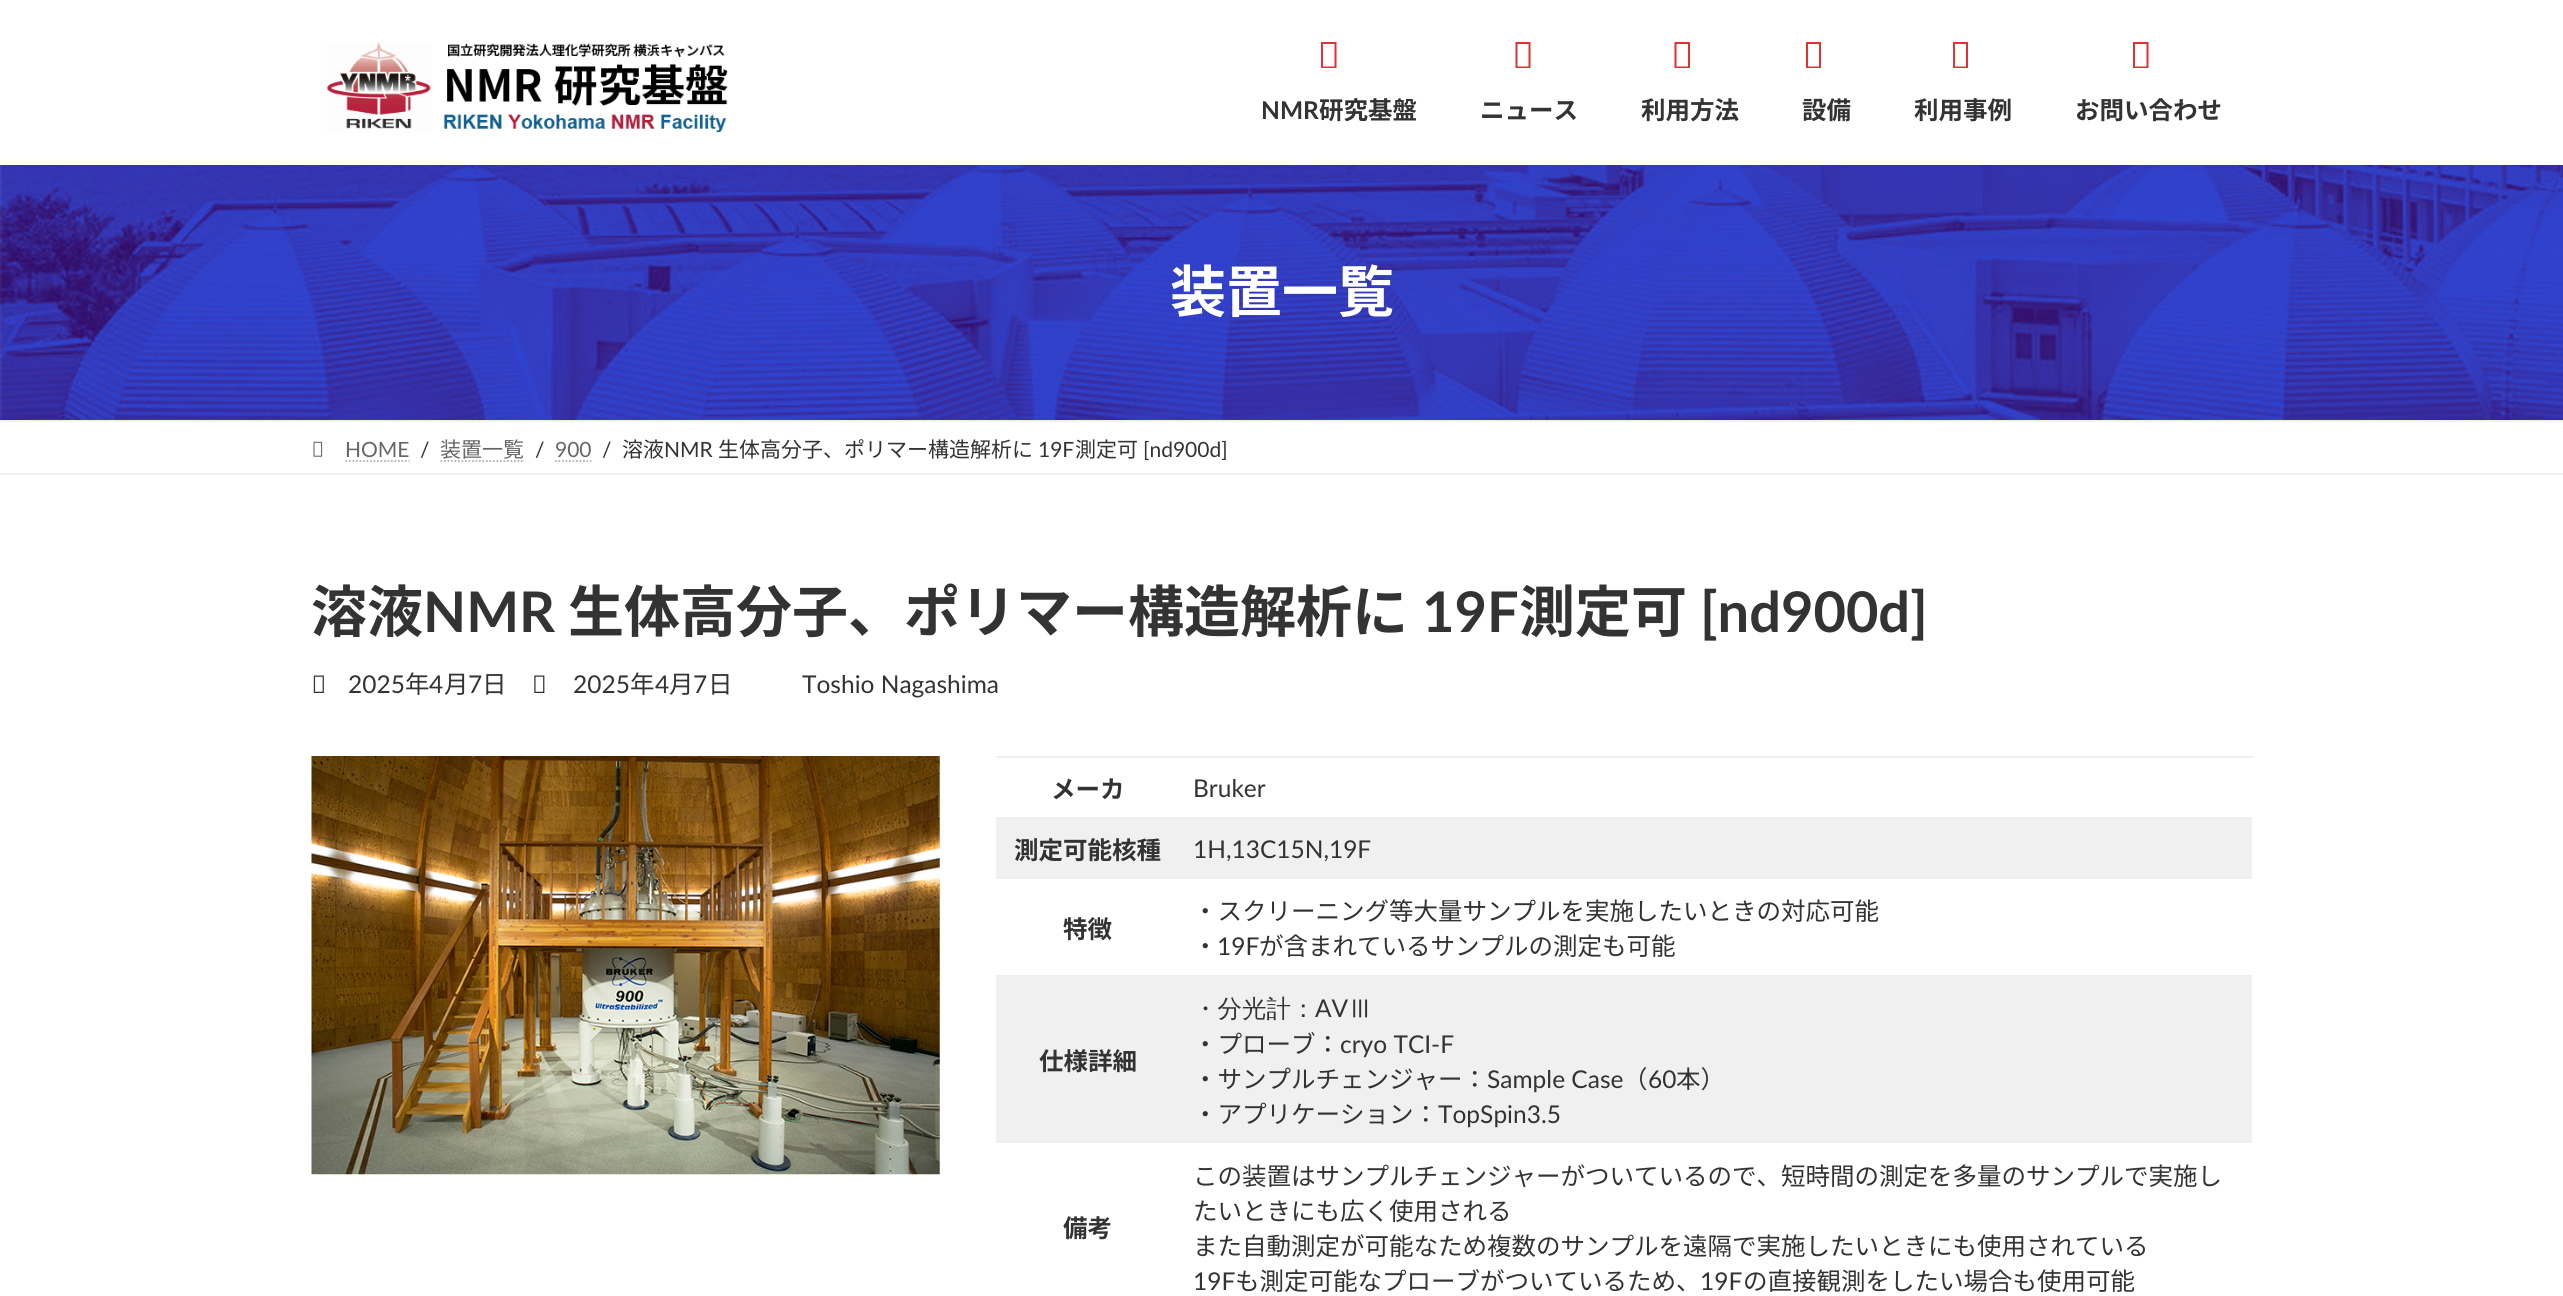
#include <cairo.h>
#include <math.h>
#include <stddef.h>

typedef struct { double x, y; const char *s; } line_t;

static void ink(cairo_t *ctx, unsigned color) {
    cairo_set_source_rgb(ctx, (color >> 16) / 255.0, (color >> 8 & 255) / 255.0, (color & 255) / 255.0);
}

static void round_path(cairo_t *ctx, double x, double y, double w, double h, double r) {
    cairo_new_sub_path(ctx);
    cairo_arc(ctx, x + w - r, y + h - r, r, 0, M_PI / 2);
    cairo_arc(ctx, x + r, y + h - r, r, M_PI / 2, M_PI);
    cairo_arc(ctx, x + r, y + r, r, M_PI, 1.5 * M_PI);
    cairo_arc(ctx, x + w - r, y + r, r, 1.5 * M_PI, 2 * M_PI);
    cairo_close_path(ctx);
}

static void blur_box(cairo_t *ctx, double x, double y, double w, double h, double r, double blur, double alpha) {
    cairo_push_group_with_content(ctx, CAIRO_CONTENT_ALPHA);
    cairo_set_operator(ctx, CAIRO_OPERATOR_SOURCE);
    for (int i = 15; i >= -15 && fmin(w, h) + blur * i / 3 > 0; i -= 2) {
        double e = blur * i / 6;
        cairo_set_source_rgba(ctx, 0, 0, 0, alpha * erfc((i - 1) / 8.5) / 2);
        round_path(ctx, x - e, y - e, w + 2 * e, h + 2 * e, fmax(0, fmin(r + e + blur * .6, fmin(w, h) / 2 + e)));
        cairo_fill(ctx);
    }
    cairo_pattern_t *soft = cairo_pop_group(ctx);
    cairo_mask(ctx, soft);
    cairo_pattern_destroy(soft);
}

static void paste(cairo_t *ctx, const char *path, double x, double y, double w, double h) {
    cairo_surface_t *image = cairo_image_surface_create_from_png(path);
    cairo_save(ctx);
    cairo_set_source_surface(ctx, image, x, y);
    cairo_rectangle(ctx, x, y, w, h);
    cairo_fill(ctx);
    cairo_restore(ctx);
    cairo_surface_destroy(image);
}

int main(void) {
    cairo_surface_t *surface = cairo_image_surface_create(CAIRO_FORMAT_RGB24, 2563, 1296);
    cairo_t *ctx = cairo_create(surface);
    cairo_font_options_t *options = cairo_font_options_create();
    cairo_font_options_set_hint_metrics(options, CAIRO_HINT_METRICS_OFF);
    cairo_font_options_set_hint_style(options, CAIRO_HINT_STYLE_NONE);
    cairo_set_font_options(ctx, options);
    cairo_set_miter_limit(ctx, 4);
    ink(ctx, 0xFFFFFF);
    cairo_paint(ctx);
    paste(ctx, "media/2.png", 0, 165, 2563, 255);
    ink(ctx, 0x000000);
    blur_box(ctx, 0, 2, 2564, 164, 0, 2.5, 0.05);
    ink(ctx, 0xFFFFFF);
    cairo_rectangle(ctx, 0, 0, 2563, 165);
    cairo_fill(ctx);
    paste(ctx, "media/1.png", 327, 42, 401, 91);
    ink(ctx, 0xDD3333);
    cairo_new_path(ctx);
    cairo_move_to(ctx, 1321, 68);
    cairo_line_to(ctx, 1321, 42);
    cairo_line_to(ctx, 1336.5, 42);
    cairo_line_to(ctx, 1336.5, 68);
    cairo_close_path(ctx);
    cairo_move_to(ctx, 1323, 66.5);
    cairo_line_to(ctx, 1334.5, 66.5);
    cairo_line_to(ctx, 1334.5, 44);
    cairo_line_to(ctx, 1323, 44);
    cairo_close_path(ctx);
    cairo_fill(ctx);
    cairo_select_font_face(ctx, "Lato", CAIRO_FONT_SLANT_NORMAL, CAIRO_FONT_WEIGHT_BOLD);
    cairo_set_font_size(ctx, 24.5);
    ink(ctx, 0x333333);
    cairo_move_to(ctx, 1261, 119);
    cairo_show_text(ctx, "NMR");
    cairo_select_font_face(ctx, "Noto Sans JP", CAIRO_FONT_SLANT_NORMAL, CAIRO_FONT_WEIGHT_BOLD);
    cairo_move_to(ctx, 1319, 119);
    cairo_show_text(ctx, "研究基盤");
    ink(ctx, 0xDD3333);
    cairo_new_path(ctx);
    cairo_move_to(ctx, 1515.5, 68);
    cairo_line_to(ctx, 1515.5, 42);
    cairo_line_to(ctx, 1530.5, 42);
    cairo_line_to(ctx, 1530.5, 68);
    cairo_close_path(ctx);
    cairo_move_to(ctx, 1517.5, 66.5);
    cairo_line_to(ctx, 1528.5, 66.5);
    cairo_line_to(ctx, 1528.5, 44);
    cairo_line_to(ctx, 1517.5, 44);
    cairo_close_path(ctx);
    cairo_fill(ctx);
    ink(ctx, 0x333333);
    cairo_move_to(ctx, 1480, 119);
    cairo_show_text(ctx, "ニュース");
    ink(ctx, 0xDD3333);
    cairo_new_path(ctx);
    cairo_move_to(ctx, 1674.5, 68);
    cairo_line_to(ctx, 1674.5, 42);
    cairo_line_to(ctx, 1690, 42);
    cairo_line_to(ctx, 1690, 68);
    cairo_close_path(ctx);
    cairo_move_to(ctx, 1676.5, 66.5);
    cairo_line_to(ctx, 1688, 66.5);
    cairo_line_to(ctx, 1688, 44);
    cairo_line_to(ctx, 1676.5, 44);
    cairo_close_path(ctx);
    cairo_fill(ctx);
    ink(ctx, 0x333333);
    cairo_move_to(ctx, 1641, 119);
    cairo_show_text(ctx, "利用方法");
    ink(ctx, 0xDD3333);
    cairo_new_path(ctx);
    cairo_move_to(ctx, 1806, 68);
    cairo_line_to(ctx, 1806, 42);
    cairo_line_to(ctx, 1821, 42);
    cairo_line_to(ctx, 1821, 68);
    cairo_close_path(ctx);
    cairo_move_to(ctx, 1808, 66.5);
    cairo_line_to(ctx, 1819, 66.5);
    cairo_line_to(ctx, 1819, 44);
    cairo_line_to(ctx, 1808, 44);
    cairo_close_path(ctx);
    cairo_fill(ctx);
    ink(ctx, 0x333333);
    cairo_move_to(ctx, 1802, 119);
    cairo_show_text(ctx, "設備");
    ink(ctx, 0xDD3333);
    cairo_new_path(ctx);
    cairo_move_to(ctx, 1953, 68);
    cairo_line_to(ctx, 1953, 42);
    cairo_line_to(ctx, 1968, 42);
    cairo_line_to(ctx, 1968, 68);
    cairo_close_path(ctx);
    cairo_move_to(ctx, 1955, 66.5);
    cairo_line_to(ctx, 1966, 66.5);
    cairo_line_to(ctx, 1966, 44);
    cairo_line_to(ctx, 1955, 44);
    cairo_close_path(ctx);
    cairo_fill(ctx);
    ink(ctx, 0x333333);
    cairo_move_to(ctx, 1914, 119);
    cairo_show_text(ctx, "利用事例");
    ink(ctx, 0xDD3333);
    cairo_new_path(ctx);
    cairo_move_to(ctx, 2133, 68);
    cairo_line_to(ctx, 2133, 42);
    cairo_line_to(ctx, 2148.5, 42);
    cairo_line_to(ctx, 2148.5, 68);
    cairo_close_path(ctx);
    cairo_move_to(ctx, 2135, 66.5);
    cairo_line_to(ctx, 2146.5, 66.5);
    cairo_line_to(ctx, 2146.5, 44);
    cairo_line_to(ctx, 2135, 44);
    cairo_close_path(ctx);
    cairo_fill(ctx);
    ink(ctx, 0x333333);
    cairo_move_to(ctx, 2075, 119);
    cairo_show_text(ctx, "お問い合わせ");
    cairo_set_font_size(ctx, 56);
    ink(ctx, 0xFFFFFF);
    cairo_move_to(ctx, 1170, 312);
    cairo_show_text(ctx, "装置一覧");
    ink(ctx, 0xF0F0F0);
    cairo_rectangle(ctx, 0, 420, 2563, 2);
    cairo_fill(ctx);
    cairo_rectangle(ctx, 0, 473, 2563, 2);
    cairo_fill(ctx);
    paste(ctx, "media/3.png", 313, 441, 10, 16);
    cairo_select_font_face(ctx, "Lato", CAIRO_FONT_SLANT_NORMAL, CAIRO_FONT_WEIGHT_NORMAL);
    cairo_set_font_size(ctx, 21);
    ink(ctx, 0x666666);
    cairo_move_to(ctx, 345, 457);
    cairo_show_text(ctx, "HOME");
    cairo_new_path(ctx);
    cairo_move_to(ctx, 345.5, 461);
    cairo_line_to(ctx, 409.5, 461);
    ink(ctx, 0xB3B3B3);
    cairo_set_line_width(ctx, 1.8);
    cairo_set_dash(ctx, (double[]){1.75, 1.75}, 2, 0);
    cairo_stroke(ctx);
    ink(ctx, 0x333333);
    cairo_move_to(ctx, 420, 457);
    cairo_show_text(ctx, "/");
    cairo_select_font_face(ctx, "Noto Sans JP", CAIRO_FONT_SLANT_NORMAL, CAIRO_FONT_WEIGHT_NORMAL);
    ink(ctx, 0x666666);
    cairo_move_to(ctx, 440, 457);
    cairo_show_text(ctx, "装置一覧");
    cairo_new_path(ctx);
    cairo_move_to(ctx, 440.5, 461);
    cairo_line_to(ctx, 524.5, 461);
    ink(ctx, 0xB3B3B3);
    cairo_stroke(ctx);
    cairo_select_font_face(ctx, "Lato", CAIRO_FONT_SLANT_NORMAL, CAIRO_FONT_WEIGHT_NORMAL);
    ink(ctx, 0x333333);
    cairo_move_to(ctx, 535, 457);
    cairo_show_text(ctx, "/");
    ink(ctx, 0x666666);
    cairo_move_to(ctx, 555, 457);
    cairo_show_text(ctx, "900");
    cairo_new_path(ctx);
    cairo_move_to(ctx, 555, 461);
    cairo_line_to(ctx, 591.5, 461);
    ink(ctx, 0xB3B3B3);
    cairo_stroke(ctx);
    ink(ctx, 0x333333);
    cairo_move_to(ctx, 602, 457);
    cairo_show_text(ctx, "/");
    cairo_select_font_face(ctx, "Noto Sans JP", CAIRO_FONT_SLANT_NORMAL, CAIRO_FONT_WEIGHT_NORMAL);
    cairo_move_to(ctx, 622, 457);
    cairo_show_text(ctx, "溶液");
    cairo_select_font_face(ctx, "Lato", CAIRO_FONT_SLANT_NORMAL, CAIRO_FONT_WEIGHT_NORMAL);
    cairo_move_to(ctx, 664, 457);
    cairo_show_text(ctx, "NMR");
    cairo_select_font_face(ctx, "Noto Sans JP", CAIRO_FONT_SLANT_NORMAL, CAIRO_FONT_WEIGHT_NORMAL);
    cairo_move_to(ctx, 718, 457);
    cairo_show_text(ctx, "生体高分子、ポリマー構造解析に");
    cairo_select_font_face(ctx, "Lato", CAIRO_FONT_SLANT_NORMAL, CAIRO_FONT_WEIGHT_NORMAL);
    cairo_move_to(ctx, 1038, 457);
    cairo_show_text(ctx, "19F");
    cairo_select_font_face(ctx, "Noto Sans JP", CAIRO_FONT_SLANT_NORMAL, CAIRO_FONT_WEIGHT_NORMAL);
    cairo_move_to(ctx, 1075, 457);
    cairo_show_text(ctx, "測定可");
    cairo_select_font_face(ctx, "Lato", CAIRO_FONT_SLANT_NORMAL, CAIRO_FONT_WEIGHT_NORMAL);
    cairo_move_to(ctx, 1143, 457);
    cairo_show_text(ctx, "[nd900d]");
    cairo_select_font_face(ctx, "Noto Sans JP", CAIRO_FONT_SLANT_NORMAL, CAIRO_FONT_WEIGHT_BOLD);
    cairo_set_font_size(ctx, 56);
    cairo_move_to(ctx, 311, 632);
    cairo_show_text(ctx, "溶液");
    cairo_select_font_face(ctx, "Lato", CAIRO_FONT_SLANT_NORMAL, CAIRO_FONT_WEIGHT_BOLD);
    cairo_move_to(ctx, 423, 632);
    cairo_show_text(ctx, "NMR");
    cairo_select_font_face(ctx, "Noto Sans JP", CAIRO_FONT_SLANT_NORMAL, CAIRO_FONT_WEIGHT_BOLD);
    cairo_move_to(ctx, 568, 632);
    cairo_show_text(ctx, "生体高分子、ポリマー構造解析に");
    cairo_select_font_face(ctx, "Lato", CAIRO_FONT_SLANT_NORMAL, CAIRO_FONT_WEIGHT_BOLD);
    cairo_move_to(ctx, 1422, 632);
    cairo_show_text(ctx, "19F");
    cairo_select_font_face(ctx, "Noto Sans JP", CAIRO_FONT_SLANT_NORMAL, CAIRO_FONT_WEIGHT_BOLD);
    cairo_move_to(ctx, 1519, 632);
    cairo_show_text(ctx, "測定可");
    cairo_select_font_face(ctx, "Lato", CAIRO_FONT_SLANT_NORMAL, CAIRO_FONT_WEIGHT_BOLD);
    cairo_move_to(ctx, 1700, 632);
    cairo_show_text(ctx, "[nd900d]");
    paste(ctx, "media/4.png", 313, 675, 11, 18);
    cairo_select_font_face(ctx, "Lato", CAIRO_FONT_SLANT_NORMAL, CAIRO_FONT_WEIGHT_NORMAL);
    cairo_set_font_size(ctx, 24.5);
    cairo_move_to(ctx, 348, 693);
    cairo_show_text(ctx, "2025");
    cairo_select_font_face(ctx, "Noto Sans JP", CAIRO_FONT_SLANT_NORMAL, CAIRO_FONT_WEIGHT_NORMAL);
    cairo_move_to(ctx, 405, 693);
    cairo_show_text(ctx, "年");
    cairo_select_font_face(ctx, "Lato", CAIRO_FONT_SLANT_NORMAL, CAIRO_FONT_WEIGHT_NORMAL);
    cairo_move_to(ctx, 429, 693);
    cairo_show_text(ctx, "4");
    cairo_select_font_face(ctx, "Noto Sans JP", CAIRO_FONT_SLANT_NORMAL, CAIRO_FONT_WEIGHT_NORMAL);
    cairo_move_to(ctx, 444, 693);
    cairo_show_text(ctx, "月");
    cairo_select_font_face(ctx, "Lato", CAIRO_FONT_SLANT_NORMAL, CAIRO_FONT_WEIGHT_NORMAL);
    cairo_move_to(ctx, 468, 693);
    cairo_show_text(ctx, "7");
    cairo_select_font_face(ctx, "Noto Sans JP", CAIRO_FONT_SLANT_NORMAL, CAIRO_FONT_WEIGHT_NORMAL);
    cairo_move_to(ctx, 482, 693);
    cairo_show_text(ctx, "日");
    paste(ctx, "media/5.png", 534, 675, 11, 18);
    cairo_select_font_face(ctx, "Lato", CAIRO_FONT_SLANT_NORMAL, CAIRO_FONT_WEIGHT_NORMAL);
    cairo_move_to(ctx, 573, 693);
    cairo_show_text(ctx, "2025");
    cairo_select_font_face(ctx, "Noto Sans JP", CAIRO_FONT_SLANT_NORMAL, CAIRO_FONT_WEIGHT_NORMAL);
    cairo_move_to(ctx, 630, 693);
    cairo_show_text(ctx, "年");
    cairo_select_font_face(ctx, "Lato", CAIRO_FONT_SLANT_NORMAL, CAIRO_FONT_WEIGHT_NORMAL);
    cairo_move_to(ctx, 655, 693);
    cairo_show_text(ctx, "4");
    cairo_select_font_face(ctx, "Noto Sans JP", CAIRO_FONT_SLANT_NORMAL, CAIRO_FONT_WEIGHT_NORMAL);
    cairo_move_to(ctx, 669, 693);
    cairo_show_text(ctx, "月");
    cairo_select_font_face(ctx, "Lato", CAIRO_FONT_SLANT_NORMAL, CAIRO_FONT_WEIGHT_NORMAL);
    cairo_move_to(ctx, 693, 693);
    cairo_show_text(ctx, "7");
    cairo_select_font_face(ctx, "Noto Sans JP", CAIRO_FONT_SLANT_NORMAL, CAIRO_FONT_WEIGHT_NORMAL);
    cairo_move_to(ctx, 708, 693);
    cairo_show_text(ctx, "日");
    cairo_select_font_face(ctx, "Lato", CAIRO_FONT_SLANT_NORMAL, CAIRO_FONT_WEIGHT_NORMAL);
    cairo_move_to(ctx, 802, 693);
    cairo_show_text(ctx, "Toshio Nagashima");
    paste(ctx, "media/6.png", 311, 756, 629, 419);
    ink(ctx, 0xF0F0F0);
    cairo_rectangle(ctx, 996, 756, 1258, 2);
    cairo_fill(ctx);
    cairo_select_font_face(ctx, "Noto Sans JP", CAIRO_FONT_SLANT_NORMAL, CAIRO_FONT_WEIGHT_BOLD);
    ink(ctx, 0x333333);
    cairo_move_to(ctx, 1051, 798);
    cairo_show_text(ctx, "メーカ");
    cairo_select_font_face(ctx, "Lato", CAIRO_FONT_SLANT_NORMAL, CAIRO_FONT_WEIGHT_NORMAL);
    cairo_move_to(ctx, 1193, 797);
    cairo_show_text(ctx, "Bruker");
    ink(ctx, 0xF0F0F0);
    cairo_rectangle(ctx, 996, 817, 1256, 62);
    cairo_fill(ctx);
    cairo_select_font_face(ctx, "Noto Sans JP", CAIRO_FONT_SLANT_NORMAL, CAIRO_FONT_WEIGHT_BOLD);
    ink(ctx, 0x333333);
    cairo_move_to(ctx, 1014, 859);
    cairo_show_text(ctx, "測定可能核種");
    cairo_select_font_face(ctx, "Lato", CAIRO_FONT_SLANT_NORMAL, CAIRO_FONT_WEIGHT_NORMAL);
    cairo_move_to(ctx, 1193, 858);
    cairo_show_text(ctx, "1H,13C15N,19F");
    cairo_select_font_face(ctx, "Noto Sans JP", CAIRO_FONT_SLANT_NORMAL, CAIRO_FONT_WEIGHT_BOLD);
    cairo_move_to(ctx, 1063, 938);
    cairo_show_text(ctx, "特徴");
    cairo_select_font_face(ctx, "Noto Sans JP", CAIRO_FONT_SLANT_NORMAL, CAIRO_FONT_WEIGHT_NORMAL);
    cairo_move_to(ctx, 1193, 920);
    cairo_show_text(ctx, "・スクリーニング等大量サンプルを実施したいときの対応可能");
    cairo_move_to(ctx, 1193, 955);
    cairo_show_text(ctx, "・");
    cairo_select_font_face(ctx, "Lato", CAIRO_FONT_SLANT_NORMAL, CAIRO_FONT_WEIGHT_NORMAL);
    cairo_move_to(ctx, 1217, 955);
    cairo_show_text(ctx, "19F");
    cairo_select_font_face(ctx, "Noto Sans JP", CAIRO_FONT_SLANT_NORMAL, CAIRO_FONT_WEIGHT_NORMAL);
    cairo_move_to(ctx, 1259, 955);
    cairo_show_text(ctx, "が含まれているサンプルの測定も可能");
    ink(ctx, 0xF0F0F0);
    cairo_rectangle(ctx, 996, 975, 1256, 168);
    cairo_fill(ctx);
    cairo_select_font_face(ctx, "Noto Sans JP", CAIRO_FONT_SLANT_NORMAL, CAIRO_FONT_WEIGHT_BOLD);
    ink(ctx, 0x333333);
    cairo_move_to(ctx, 1039, 1070);
    cairo_show_text(ctx, "仕様詳細");
    cairo_select_font_face(ctx, "WenQuanYi Zen Hei Medium", CAIRO_FONT_SLANT_NORMAL, CAIRO_FONT_WEIGHT_NORMAL);
    cairo_move_to(ctx, 1193, 1017);
    cairo_show_text(ctx, "・分光計：");
    cairo_select_font_face(ctx, "Lato", CAIRO_FONT_SLANT_NORMAL, CAIRO_FONT_WEIGHT_NORMAL);
    cairo_move_to(ctx, 1315, 1017);
    cairo_show_text(ctx, "AV");
    cairo_select_font_face(ctx, "WenQuanYi Zen Hei Medium", CAIRO_FONT_SLANT_NORMAL, CAIRO_FONT_WEIGHT_NORMAL);
    cairo_move_to(ctx, 1348, 1017);
    cairo_show_text(ctx, "Ⅲ");
    cairo_select_font_face(ctx, "Noto Sans JP", CAIRO_FONT_SLANT_NORMAL, CAIRO_FONT_WEIGHT_NORMAL);
    cairo_move_to(ctx, 1193, 1053);
    cairo_show_text(ctx, "・プローブ：");
    cairo_select_font_face(ctx, "Lato", CAIRO_FONT_SLANT_NORMAL, CAIRO_FONT_WEIGHT_NORMAL);
    cairo_move_to(ctx, 1340, 1053);
    cairo_show_text(ctx, "cryo TCI-F");
    cairo_select_font_face(ctx, "Noto Sans JP", CAIRO_FONT_SLANT_NORMAL, CAIRO_FONT_WEIGHT_NORMAL);
    cairo_move_to(ctx, 1193, 1088);
    cairo_show_text(ctx, "・サンプルチェンジャー：");
    cairo_select_font_face(ctx, "Lato", CAIRO_FONT_SLANT_NORMAL, CAIRO_FONT_WEIGHT_NORMAL);
    cairo_move_to(ctx, 1487, 1088);
    cairo_show_text(ctx, "Sample Case");
    cairo_select_font_face(ctx, "Noto Sans JP", CAIRO_FONT_SLANT_NORMAL, CAIRO_FONT_WEIGHT_NORMAL);
    cairo_move_to(ctx, 1623, 1088);
    cairo_show_text(ctx, "（");
    cairo_select_font_face(ctx, "Lato", CAIRO_FONT_SLANT_NORMAL, CAIRO_FONT_WEIGHT_NORMAL);
    cairo_move_to(ctx, 1648, 1088);
    cairo_show_text(ctx, "60");
    cairo_select_font_face(ctx, "Noto Sans JP", CAIRO_FONT_SLANT_NORMAL, CAIRO_FONT_WEIGHT_NORMAL);
    cairo_move_to(ctx, 1676, 1088);
    cairo_show_text(ctx, "本）");
    cairo_move_to(ctx, 1193, 1123);
    cairo_show_text(ctx, "・アプリケーション：");
    cairo_select_font_face(ctx, "Lato", CAIRO_FONT_SLANT_NORMAL, CAIRO_FONT_WEIGHT_NORMAL);
    cairo_move_to(ctx, 1438, 1123);
    cairo_show_text(ctx, "TopSpin3.5");
    cairo_select_font_face(ctx, "Noto Sans JP", CAIRO_FONT_SLANT_NORMAL, CAIRO_FONT_WEIGHT_BOLD);
    cairo_move_to(ctx, 1063, 1237);
    cairo_show_text(ctx, "備考");
    cairo_select_font_face(ctx, "Noto Sans JP", CAIRO_FONT_SLANT_NORMAL, CAIRO_FONT_WEIGHT_NORMAL);
    {
        static const line_t items[] = {
            {1193, 1185, "この装置はサンプルチェンジャーがついているので、短時間の測定を多量のサンプルで実施し"},
            {1193, 1220, "たいときにも広く使用される"},
            {1193, 1255, "また自動測定が可能なため複数のサンプルを遠隔で実施したいときにも使用されている"},
        };
        for (size_t i = 0; i < sizeof items / sizeof *items; i++) {
            cairo_move_to(ctx, items[i].x, items[i].y);
            cairo_show_text(ctx, items[i].s);
        }
    }
    cairo_select_font_face(ctx, "Lato", CAIRO_FONT_SLANT_NORMAL, CAIRO_FONT_WEIGHT_NORMAL);
    cairo_move_to(ctx, 1193, 1290);
    cairo_show_text(ctx, "19F");
    cairo_select_font_face(ctx, "Noto Sans JP", CAIRO_FONT_SLANT_NORMAL, CAIRO_FONT_WEIGHT_NORMAL);
    cairo_move_to(ctx, 1235, 1290);
    cairo_show_text(ctx, "も測定可能なプローブがついているため、");
    cairo_select_font_face(ctx, "Lato", CAIRO_FONT_SLANT_NORMAL, CAIRO_FONT_WEIGHT_NORMAL);
    cairo_move_to(ctx, 1700, 1290);
    cairo_show_text(ctx, "19F");
    cairo_select_font_face(ctx, "Noto Sans JP", CAIRO_FONT_SLANT_NORMAL, CAIRO_FONT_WEIGHT_NORMAL);
    cairo_move_to(ctx, 1743, 1290);
    cairo_show_text(ctx, "の直接観測をしたい場合も使用可能");
    cairo_surface_write_to_png(surface, "image.png");
    cairo_font_options_destroy(options);
    cairo_destroy(ctx);
    cairo_surface_destroy(surface);
    return 0;
}
